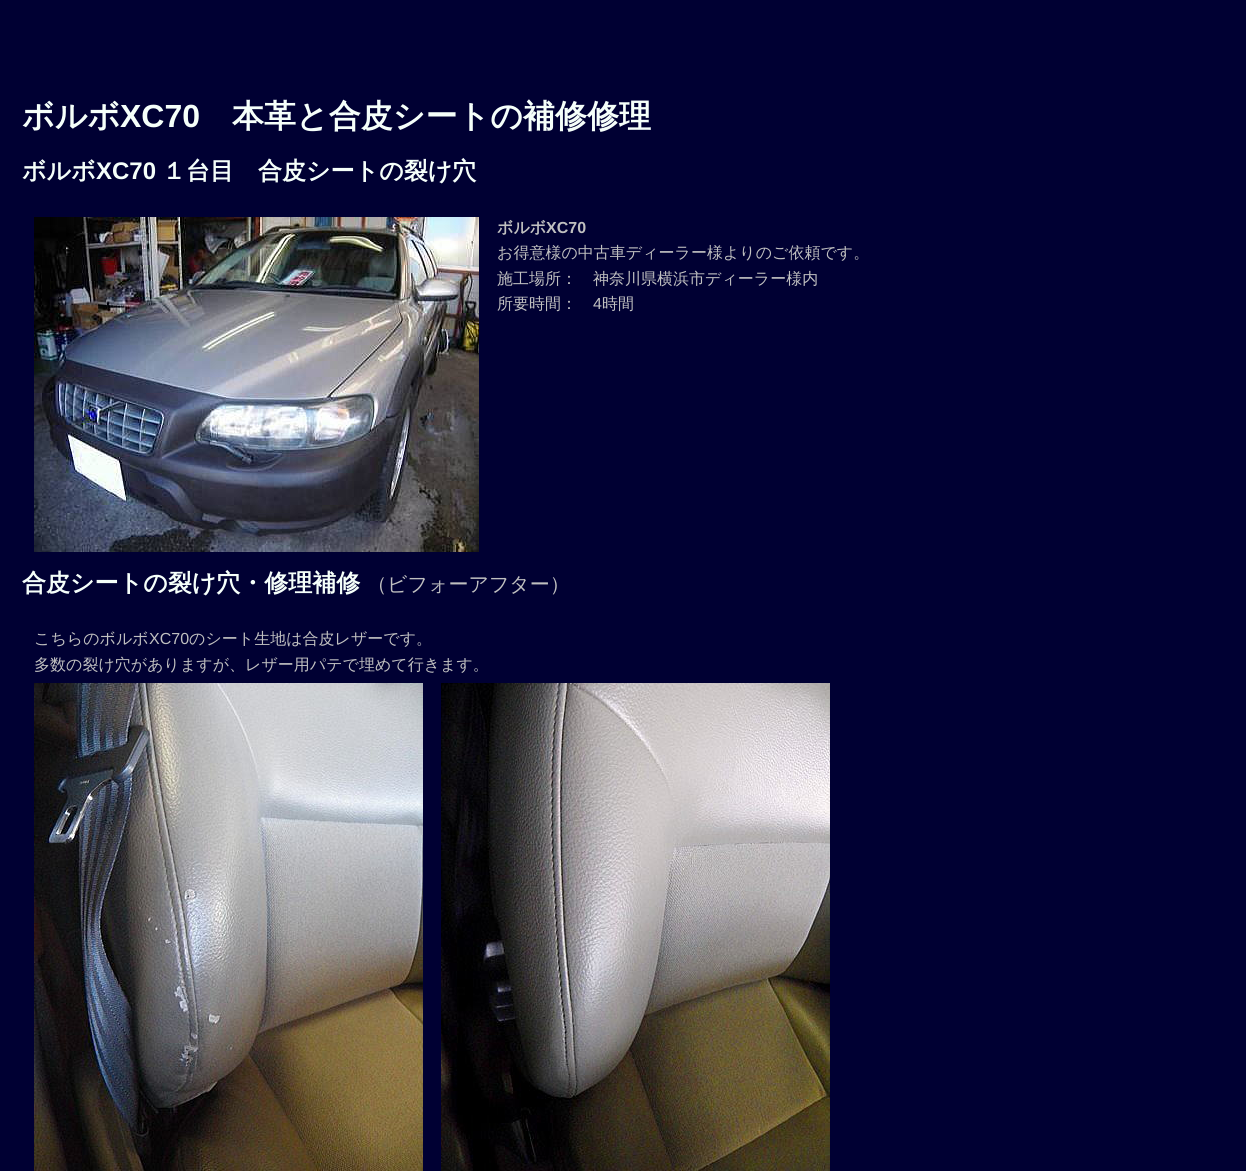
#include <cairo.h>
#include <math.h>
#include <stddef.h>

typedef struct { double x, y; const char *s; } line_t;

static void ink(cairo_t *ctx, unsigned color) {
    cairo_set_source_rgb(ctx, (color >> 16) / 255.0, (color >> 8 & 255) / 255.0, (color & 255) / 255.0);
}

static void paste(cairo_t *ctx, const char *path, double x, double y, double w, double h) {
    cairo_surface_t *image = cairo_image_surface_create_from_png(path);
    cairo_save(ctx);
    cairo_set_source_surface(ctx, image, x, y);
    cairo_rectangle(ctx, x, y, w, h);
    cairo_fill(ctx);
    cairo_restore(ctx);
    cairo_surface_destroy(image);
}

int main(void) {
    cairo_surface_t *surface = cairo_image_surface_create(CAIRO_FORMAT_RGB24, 1246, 1171);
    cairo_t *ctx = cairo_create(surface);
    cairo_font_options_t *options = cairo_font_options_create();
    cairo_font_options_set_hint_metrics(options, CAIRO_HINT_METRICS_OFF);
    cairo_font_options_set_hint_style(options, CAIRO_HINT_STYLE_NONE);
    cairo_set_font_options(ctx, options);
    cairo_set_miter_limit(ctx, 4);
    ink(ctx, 0x000033);
    cairo_paint(ctx);
    cairo_select_font_face(ctx, "WenQuanYi Zen Hei", CAIRO_FONT_SLANT_NORMAL, CAIRO_FONT_WEIGHT_BOLD);
    cairo_set_font_size(ctx, 32);
    ink(ctx, 0xF5FFFA);
    cairo_move_to(ctx, 22, 127);
    cairo_show_text(ctx, "ボルボ");
    cairo_select_font_face(ctx, "Liberation Sans", CAIRO_FONT_SLANT_NORMAL, CAIRO_FONT_WEIGHT_BOLD);
    cairo_move_to(ctx, 120, 127);
    cairo_show_text(ctx, "XC70");
    cairo_select_font_face(ctx, "WenQuanYi Zen Hei", CAIRO_FONT_SLANT_NORMAL, CAIRO_FONT_WEIGHT_BOLD);
    cairo_move_to(ctx, 232, 127);
    cairo_show_text(ctx, "本革と合皮シートの補修修理");
    cairo_set_font_size(ctx, 24);
    cairo_move_to(ctx, 22, 179);
    cairo_show_text(ctx, "ボルボ");
    cairo_select_font_face(ctx, "Liberation Sans", CAIRO_FONT_SLANT_NORMAL, CAIRO_FONT_WEIGHT_BOLD);
    cairo_move_to(ctx, 96, 179);
    cairo_show_text(ctx, "XC70");
    cairo_select_font_face(ctx, "WenQuanYi Zen Hei", CAIRO_FONT_SLANT_NORMAL, CAIRO_FONT_WEIGHT_BOLD);
    cairo_move_to(ctx, 162, 179);
    cairo_show_text(ctx, "１台目　合皮シートの裂け穴");
    paste(ctx, "media/1.png", 34, 217, 445, 335);
    cairo_set_font_size(ctx, 16);
    ink(ctx, 0xC0C0C0);
    cairo_move_to(ctx, 497, 233);
    cairo_show_text(ctx, "ボルボ");
    cairo_select_font_face(ctx, "Liberation Sans", CAIRO_FONT_SLANT_NORMAL, CAIRO_FONT_WEIGHT_BOLD);
    cairo_move_to(ctx, 546, 233);
    cairo_show_text(ctx, "XC70");
    cairo_select_font_face(ctx, "WenQuanYi Zen Hei Medium", CAIRO_FONT_SLANT_NORMAL, CAIRO_FONT_WEIGHT_NORMAL);
    {
        static const line_t items[] = {
            {497, 258, "お得意様の中古車ディーラー様よりのご依頼です。"},
            {497, 284, "施工場所：　神奈川県横浜市ディーラー様内"},
            {497, 309, "所要時間："},
        };
        for (size_t i = 0; i < sizeof items / sizeof *items; i++) {
            cairo_move_to(ctx, items[i].x, items[i].y);
            cairo_show_text(ctx, items[i].s);
        }
    }
    cairo_select_font_face(ctx, "Liberation Sans", CAIRO_FONT_SLANT_NORMAL, CAIRO_FONT_WEIGHT_NORMAL);
    cairo_move_to(ctx, 593, 309);
    cairo_show_text(ctx, "4");
    cairo_select_font_face(ctx, "WenQuanYi Zen Hei Medium", CAIRO_FONT_SLANT_NORMAL, CAIRO_FONT_WEIGHT_NORMAL);
    cairo_move_to(ctx, 602, 309);
    cairo_show_text(ctx, "時間");
    cairo_select_font_face(ctx, "WenQuanYi Zen Hei", CAIRO_FONT_SLANT_NORMAL, CAIRO_FONT_WEIGHT_BOLD);
    cairo_set_font_size(ctx, 24);
    ink(ctx, 0xF5FFFA);
    cairo_move_to(ctx, 22, 591);
    cairo_show_text(ctx, "合皮シートの裂け穴・修理補修");
    cairo_select_font_face(ctx, "WenQuanYi Zen Hei Medium", CAIRO_FONT_SLANT_NORMAL, CAIRO_FONT_WEIGHT_NORMAL);
    cairo_set_font_size(ctx, 20);
    ink(ctx, 0xC0C0C0);
    cairo_move_to(ctx, 367, 591);
    cairo_show_text(ctx, "（ビフォーアフター）");
    cairo_set_font_size(ctx, 16);
    cairo_move_to(ctx, 34, 644);
    cairo_show_text(ctx, "こちらのボルボ");
    cairo_select_font_face(ctx, "Liberation Sans", CAIRO_FONT_SLANT_NORMAL, CAIRO_FONT_WEIGHT_NORMAL);
    cairo_move_to(ctx, 149, 644);
    cairo_show_text(ctx, "XC70");
    cairo_select_font_face(ctx, "WenQuanYi Zen Hei Medium", CAIRO_FONT_SLANT_NORMAL, CAIRO_FONT_WEIGHT_NORMAL);
    cairo_move_to(ctx, 189, 644);
    cairo_show_text(ctx, "のシート生地は合皮レザーです。");
    cairo_move_to(ctx, 34, 670);
    cairo_show_text(ctx, "多数の裂け穴がありますが、レザー用パテで埋めて行きます。");
    paste(ctx, "media/2.png", 34, 683, 389, 488);
    paste(ctx, "media/3.png", 441, 683, 389, 488);
    cairo_surface_write_to_png(surface, "image.png");
    cairo_font_options_destroy(options);
    cairo_destroy(ctx);
    cairo_surface_destroy(surface);
    return 0;
}
